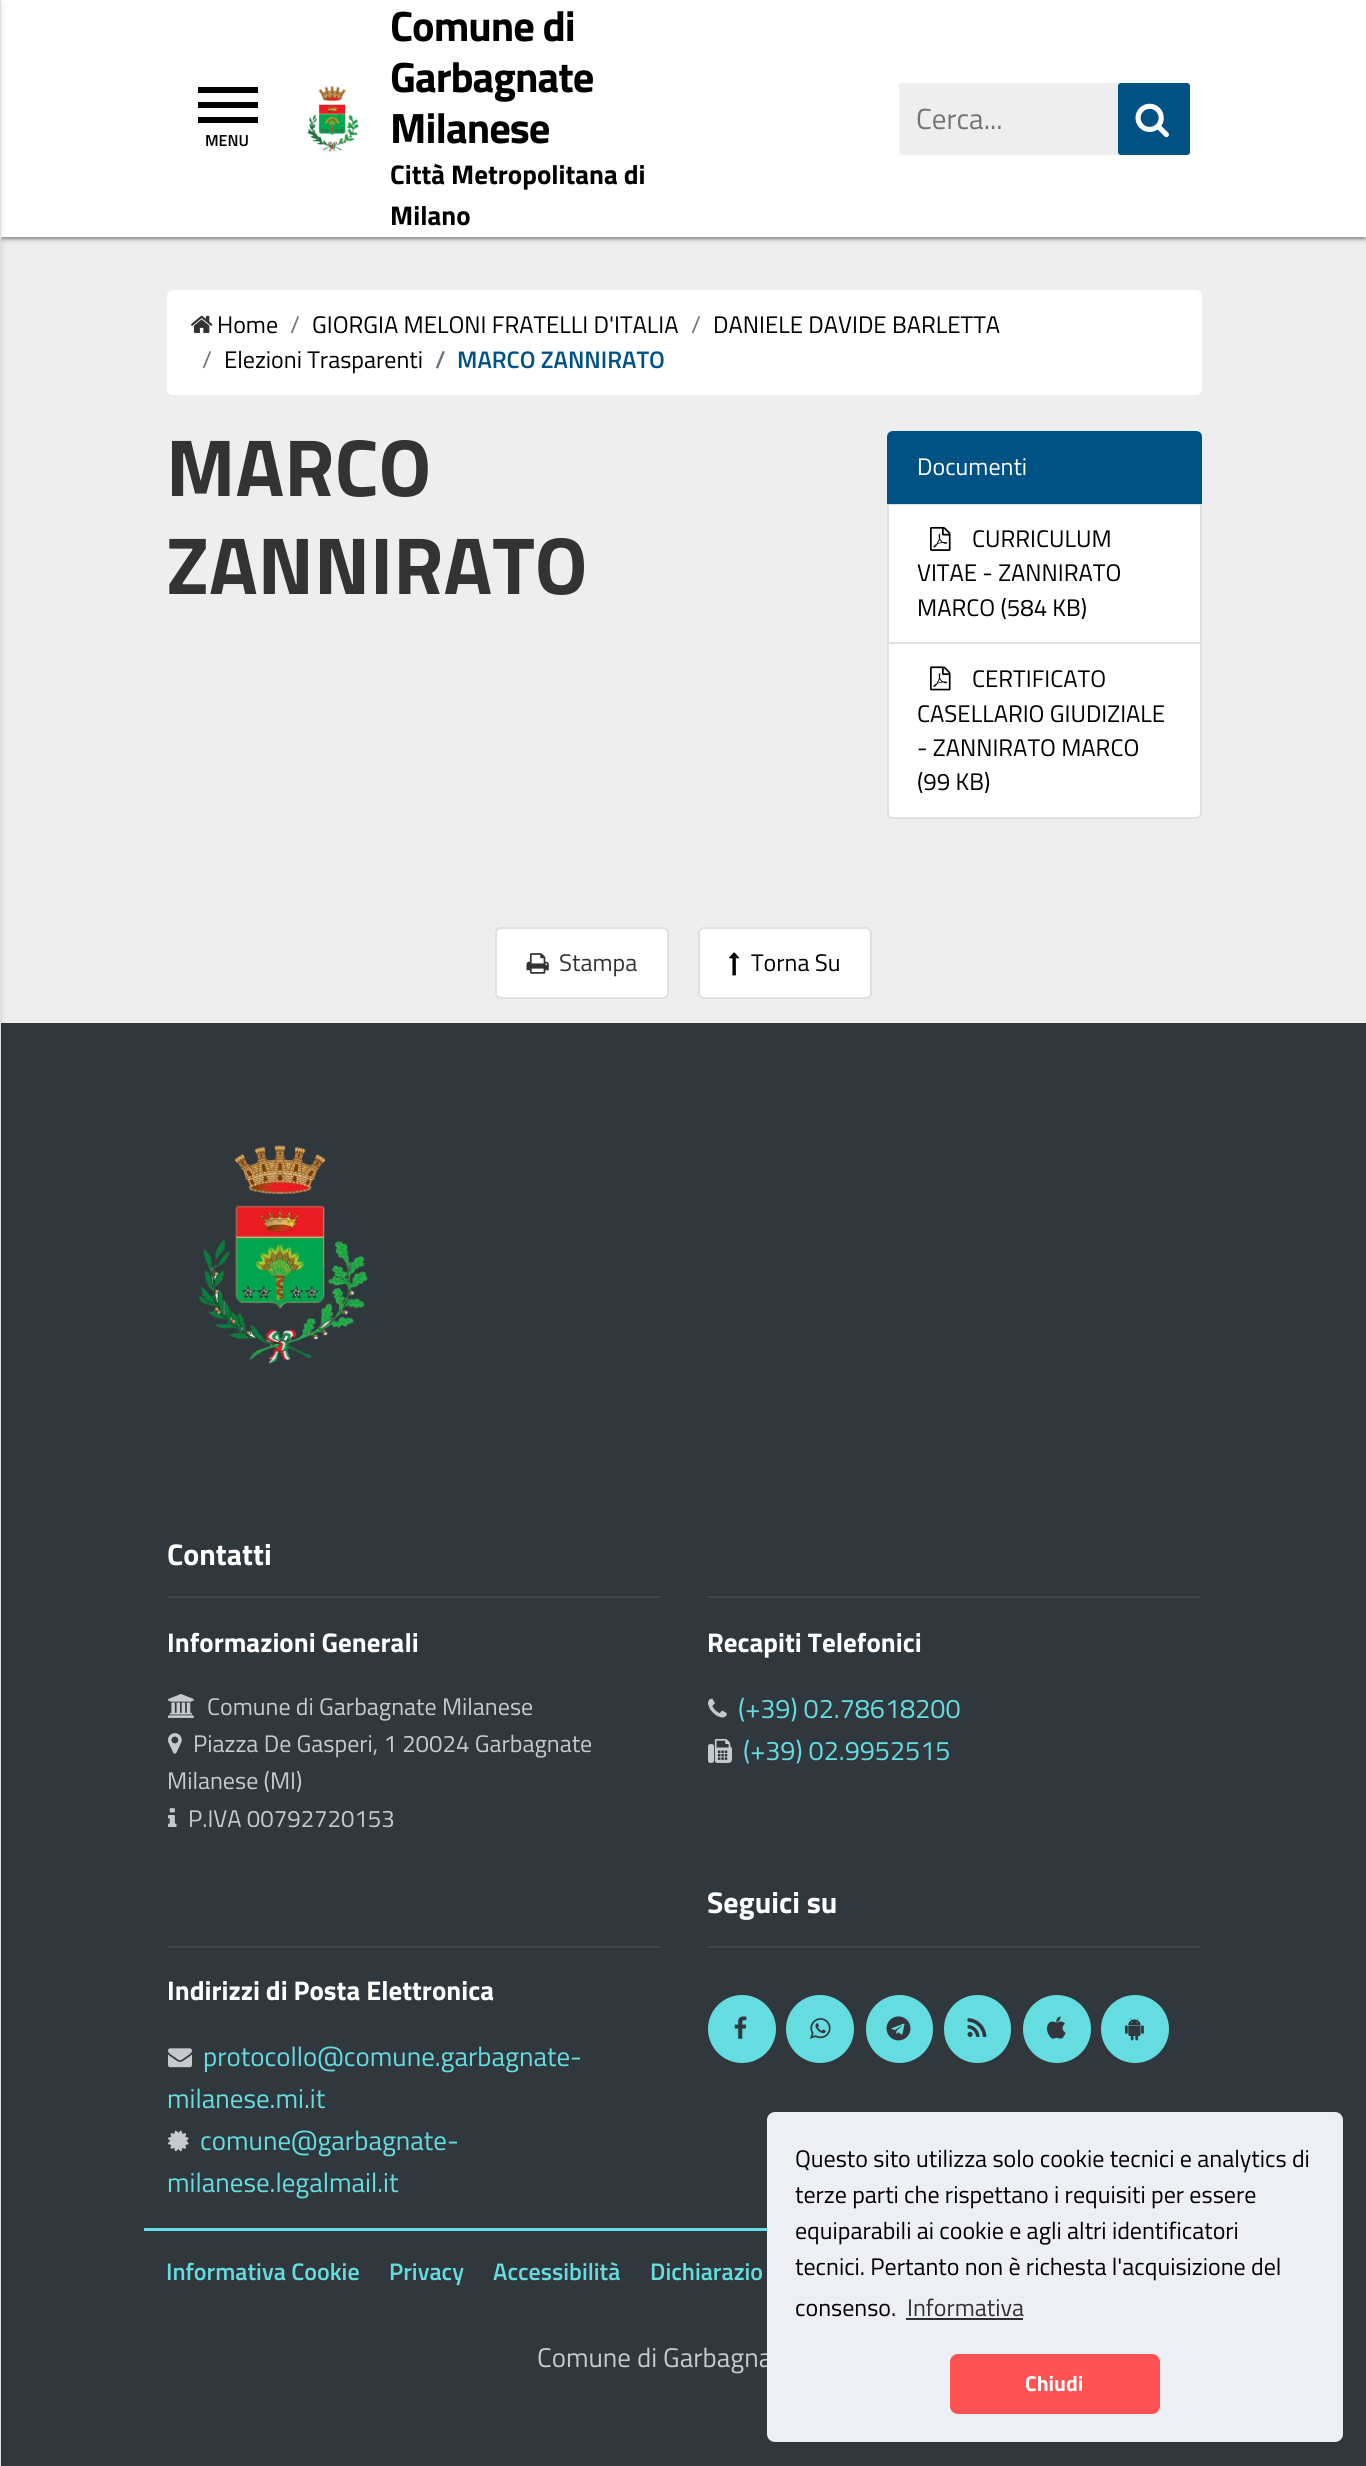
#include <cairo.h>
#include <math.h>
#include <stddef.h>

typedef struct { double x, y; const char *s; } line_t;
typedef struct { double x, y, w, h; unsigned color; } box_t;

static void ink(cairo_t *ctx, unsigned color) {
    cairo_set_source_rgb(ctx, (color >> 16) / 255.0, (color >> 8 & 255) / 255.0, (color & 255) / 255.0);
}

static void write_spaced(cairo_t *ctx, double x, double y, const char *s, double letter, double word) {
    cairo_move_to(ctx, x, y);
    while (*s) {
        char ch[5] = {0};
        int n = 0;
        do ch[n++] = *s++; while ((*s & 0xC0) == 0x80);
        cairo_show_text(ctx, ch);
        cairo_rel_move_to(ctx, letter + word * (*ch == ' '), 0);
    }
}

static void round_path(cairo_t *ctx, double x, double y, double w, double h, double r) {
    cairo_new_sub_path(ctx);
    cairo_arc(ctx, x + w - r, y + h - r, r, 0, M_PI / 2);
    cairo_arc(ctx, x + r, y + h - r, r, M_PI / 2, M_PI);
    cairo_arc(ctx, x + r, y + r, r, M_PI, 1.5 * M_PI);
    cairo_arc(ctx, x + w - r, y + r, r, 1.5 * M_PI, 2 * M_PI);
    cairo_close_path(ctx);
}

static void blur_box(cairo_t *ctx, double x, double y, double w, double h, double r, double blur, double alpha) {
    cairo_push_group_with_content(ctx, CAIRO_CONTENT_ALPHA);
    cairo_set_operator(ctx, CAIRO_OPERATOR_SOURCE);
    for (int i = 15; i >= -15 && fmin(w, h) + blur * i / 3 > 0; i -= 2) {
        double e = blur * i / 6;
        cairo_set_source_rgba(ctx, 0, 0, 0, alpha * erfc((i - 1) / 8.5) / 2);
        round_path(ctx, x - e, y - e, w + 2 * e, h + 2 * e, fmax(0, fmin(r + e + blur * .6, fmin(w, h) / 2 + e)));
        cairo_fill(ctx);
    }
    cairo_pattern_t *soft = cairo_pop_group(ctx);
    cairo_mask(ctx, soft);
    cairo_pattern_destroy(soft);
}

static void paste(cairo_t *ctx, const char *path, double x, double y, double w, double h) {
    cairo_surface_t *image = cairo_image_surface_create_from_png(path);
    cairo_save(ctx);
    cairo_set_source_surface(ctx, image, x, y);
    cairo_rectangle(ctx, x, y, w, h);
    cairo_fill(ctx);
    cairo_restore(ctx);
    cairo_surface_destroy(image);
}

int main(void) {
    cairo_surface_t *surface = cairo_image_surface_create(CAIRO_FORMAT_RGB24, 1366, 2466);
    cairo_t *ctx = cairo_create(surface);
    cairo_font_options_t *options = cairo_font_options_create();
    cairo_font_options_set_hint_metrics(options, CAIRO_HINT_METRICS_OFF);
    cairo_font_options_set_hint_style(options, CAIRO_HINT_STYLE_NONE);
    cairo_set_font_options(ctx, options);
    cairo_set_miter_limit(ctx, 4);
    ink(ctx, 0xEEEEEE);
    cairo_paint(ctx);
    ink(ctx, 0x000000);
    blur_box(ctx, 0, 2, 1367, 237, 0, 4, 0.12);
    blur_box(ctx, 3, 8, 1361, 231, 0, 1, 0.2);
    blur_box(ctx, 0, 3, 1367, 237, 0, 1.5, 0.14);
    ink(ctx, 0xFFFFFF);
    cairo_rectangle(ctx, 1, 0, 1365, 237);
    cairo_fill(ctx);
    ink(ctx, 0x30373D);
    cairo_rectangle(ctx, 1, 1023, 1365, 1443);
    cairo_fill(ctx);
    ink(ctx, 0x000000);
    blur_box(ctx, -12, 2, 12, 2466, 0, 4, 0.12);
    blur_box(ctx, -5, 3, 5, 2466, 0, 1.5, 0.14);
    ink(ctx, 0xE0E0E0);
    cairo_rectangle(ctx, 0, 0, 1, 2466);
    cairo_fill(ctx);
    paste(ctx, "media/1.png", 307, 86, 52, 66);
    cairo_select_font_face(ctx, "Titillium Web", CAIRO_FONT_SLANT_NORMAL, CAIRO_FONT_WEIGHT_BOLD);
    cairo_set_font_size(ctx, 42.5);
    ink(ctx, 0x000000);
    {
        static const line_t items[] = {
            {390, 41, "Comune di"},
            {390, 92, "Garbagnate"},
            {390, 143, "Milanese"},
        };
        for (size_t i = 0; i < sizeof items / sizeof *items; i++) {
            write_spaced(ctx, items[i].x, items[i].y, items[i].s, -1, 0);
        }
    }
    cairo_set_font_size(ctx, 27);
    cairo_move_to(ctx, 390, 184);
    cairo_show_text(ctx, "Città Metropolitana di");
    cairo_move_to(ctx, 390, 225);
    cairo_show_text(ctx, "Milano");
    ink(ctx, 0xEEEEEE);
    round_path(ctx, 899, 83, 291, 72, 3);
    cairo_fill(ctx);
    cairo_select_font_face(ctx, "Titillium Web", CAIRO_FONT_SLANT_NORMAL, CAIRO_FONT_WEIGHT_NORMAL);
    cairo_set_font_size(ctx, 29);
    ink(ctx, 0x757575);
    cairo_move_to(ctx, 916, 129);
    cairo_show_text(ctx, "Cerca...");
    ink(ctx, 0x005284);
    round_path(ctx, 1118, 83, 72, 72, 3);
    cairo_fill(ctx);
    paste(ctx, "media/2.png", 1135, 103, 34, 35);
    {
        static const box_t items[] = {
            {198, 87, 60, 6, 0x000000},
            {198, 102, 60, 6, 0x000000},
            {198, 117, 60, 6, 0x000000},
        };
        for (size_t i = 0; i < sizeof items / sizeof *items; i++) {
            ink(ctx, items[i].color);
            cairo_rectangle(ctx, items[i].x, items[i].y, items[i].w, items[i].h);
            cairo_fill(ctx);
        }
    }
    cairo_select_font_face(ctx, "Titillium Web SemiBold", CAIRO_FONT_SLANT_NORMAL, CAIRO_FONT_WEIGHT_NORMAL);
    cairo_set_font_size(ctx, 16);
    cairo_move_to(ctx, 205, 146);
    cairo_show_text(ctx, "MENU");
    ink(ctx, 0xFFFFFF);
    round_path(ctx, 167, 290, 1035, 105, 6);
    cairo_fill(ctx);
    paste(ctx, "media/3.png", 190, 315, 23, 18);
    cairo_select_font_face(ctx, "Titillium Web", CAIRO_FONT_SLANT_NORMAL, CAIRO_FONT_WEIGHT_NORMAL);
    cairo_set_font_size(ctx, 24);
    ink(ctx, 0x000000);
    cairo_move_to(ctx, 217, 333);
    cairo_show_text(ctx, "Home");
    ink(ctx, 0x6C757D);
    cairo_move_to(ctx, 290, 333);
    cairo_show_text(ctx, "/");
    ink(ctx, 0x000000);
    cairo_move_to(ctx, 312, 333);
    cairo_show_text(ctx, "GIORGIA MELONI FRATELLI D'ITALIA");
    ink(ctx, 0x6C757D);
    cairo_move_to(ctx, 691, 333);
    cairo_show_text(ctx, "/");
    ink(ctx, 0x000000);
    cairo_move_to(ctx, 713, 333);
    cairo_show_text(ctx, "DANIELE DAVIDE BARLETTA");
    ink(ctx, 0x6C757D);
    cairo_move_to(ctx, 202, 368);
    cairo_show_text(ctx, "/");
    ink(ctx, 0x000000);
    cairo_move_to(ctx, 224, 368);
    cairo_show_text(ctx, "Elezioni Trasparenti");
    cairo_select_font_face(ctx, "Titillium Web SemiBold", CAIRO_FONT_SLANT_NORMAL, CAIRO_FONT_WEIGHT_NORMAL);
    ink(ctx, 0x6C757D);
    cairo_move_to(ctx, 435, 368);
    cairo_show_text(ctx, "/");
    ink(ctx, 0x005284);
    cairo_move_to(ctx, 457, 368);
    cairo_show_text(ctx, "MARCO ZANNIRATO");
    cairo_select_font_face(ctx, "Titillium Web", CAIRO_FONT_SLANT_NORMAL, CAIRO_FONT_WEIGHT_BOLD);
    cairo_set_font_size(ctx, 81);
    ink(ctx, 0x333333);
    cairo_move_to(ctx, 166, 496);
    cairo_show_text(ctx, "MARCO");
    cairo_move_to(ctx, 166, 594);
    cairo_show_text(ctx, "ZANNIRATO");
    ink(ctx, 0xFFFFFF);
    cairo_rectangle(ctx, 888, 504, 313, 139);
    cairo_fill_preserve(ctx);
    ink(ctx, 0xDFDFDF);
    cairo_stroke(ctx);
    ink(ctx, 0x005284);
    cairo_new_path(ctx);
    cairo_move_to(ctx, 893, 432);
    cairo_line_to(ctx, 1196, 432);
    cairo_curve_to(ctx, 1199, 432, 1201, 434, 1201, 437);
    cairo_line_to(ctx, 1201, 503);
    cairo_line_to(ctx, 888, 503);
    cairo_line_to(ctx, 888, 437);
    cairo_curve_to(ctx, 888, 434, 890, 432, 893, 432);
    cairo_close_path(ctx);
    cairo_fill_preserve(ctx);
    cairo_stroke(ctx);
    cairo_select_font_face(ctx, "Titillium Web", CAIRO_FONT_SLANT_NORMAL, CAIRO_FONT_WEIGHT_NORMAL);
    cairo_set_font_size(ctx, 24);
    ink(ctx, 0xFFFFFF);
    cairo_move_to(ctx, 917, 475);
    cairo_show_text(ctx, "Documenti");
    paste(ctx, "media/4.png", 930, 526, 21, 25);
    ink(ctx, 0x000000);
    {
        static const line_t items[] = {
            {972, 547, "CURRICULUM"},
            {917, 581, "VITAE - ZANNIRATO"},
            {917, 616, "MARCO (584 KB)"},
        };
        for (size_t i = 0; i < sizeof items / sizeof *items; i++) {
            cairo_move_to(ctx, items[i].x, items[i].y);
            cairo_show_text(ctx, items[i].s);
        }
    }
    ink(ctx, 0xFFFFFF);
    cairo_new_path(ctx);
    cairo_move_to(ctx, 887, 642);
    cairo_line_to(ctx, 1202, 642);
    cairo_line_to(ctx, 1202, 813);
    cairo_curve_to(ctx, 1202, 816.5, 1199.5, 819, 1196, 819);
    cairo_line_to(ctx, 893, 819);
    cairo_curve_to(ctx, 889.5, 819, 887, 816.5, 887, 813);
    cairo_close_path(ctx);
    cairo_fill(ctx);
    cairo_new_path(ctx);
    cairo_move_to(ctx, 888, 643);
    cairo_line_to(ctx, 1201, 643);
    cairo_line_to(ctx, 1201, 813);
    cairo_curve_to(ctx, 1201, 816, 1199, 818, 1196, 818);
    cairo_line_to(ctx, 893, 818);
    cairo_curve_to(ctx, 890, 818, 888, 816, 888, 813);
    cairo_close_path(ctx);
    cairo_set_source_rgba(ctx, 0, 0, 0, 0.12);
    cairo_stroke(ctx);
    paste(ctx, "media/5.png", 930, 666, 21, 25);
    ink(ctx, 0x000000);
    {
        static const line_t items[] = {
            {972, 687, "CERTIFICATO"},
            {917, 722, "CASELLARIO GIUDIZIALE"},
            {917, 756, "- ZANNIRATO MARCO"},
            {917, 790, "(99 KB)"},
        };
        for (size_t i = 0; i < sizeof items / sizeof *items; i++) {
            cairo_move_to(ctx, items[i].x, items[i].y);
            cairo_show_text(ctx, items[i].s);
        }
    }
    ink(ctx, 0xFFFFFF);
    round_path(ctx, 495, 927, 174, 72, 6);
    cairo_fill(ctx);
    round_path(ctx, 496, 928, 172, 70, 5);
    cairo_set_source_rgba(ctx, 0, 0, 0, 0.12);
    cairo_stroke(ctx);
    paste(ctx, "media/6.png", 526, 953, 23, 21);
    ink(ctx, 0x333333);
    cairo_move_to(ctx, 559, 971);
    cairo_show_text(ctx, "Stampa");
    ink(ctx, 0xFFFFFF);
    round_path(ctx, 698, 927, 174, 72, 6);
    cairo_fill(ctx);
    round_path(ctx, 699, 928, 172, 70, 5);
    cairo_set_source_rgba(ctx, 0, 0, 0, 0.12);
    cairo_stroke(ctx);
    paste(ctx, "media/7.png", 729, 952, 11, 24);
    ink(ctx, 0x000000);
    cairo_move_to(ctx, 751, 971);
    cairo_show_text(ctx, "Torna Su");
    paste(ctx, "media/8.png", 198, 1145, 170, 219);
    cairo_select_font_face(ctx, "Titillium Web", CAIRO_FONT_SLANT_NORMAL, CAIRO_FONT_WEIGHT_BOLD);
    cairo_set_font_size(ctx, 30);
    ink(ctx, 0xFFFFFF);
    cairo_move_to(ctx, 167, 1565);
    cairo_show_text(ctx, "Contatti");
    ink(ctx, 0x3E484F);
    cairo_rectangle(ctx, 168, 1596, 492, 2);
    cairo_fill(ctx);
    cairo_set_font_size(ctx, 27);
    ink(ctx, 0xFFFFFF);
    cairo_move_to(ctx, 167, 1652);
    cairo_show_text(ctx, "Informazioni Generali");
    paste(ctx, "media/9.png", 168, 1694, 26, 24);
    cairo_select_font_face(ctx, "Titillium Web", CAIRO_FONT_SLANT_NORMAL, CAIRO_FONT_WEIGHT_NORMAL);
    cairo_set_font_size(ctx, 24);
    ink(ctx, 0xC6CACE);
    cairo_move_to(ctx, 207, 1715);
    cairo_show_text(ctx, "Comune di Garbagnate Milanese");
    paste(ctx, "media/10.png", 168, 1733, 14, 21);
    cairo_move_to(ctx, 193, 1752);
    cairo_show_text(ctx, "Piazza De Gasperi, 1 20024 Garbagnate");
    cairo_move_to(ctx, 167, 1789);
    cairo_show_text(ctx, "Milanese (MI)");
    paste(ctx, "media/11.png", 168, 1808, 9, 19);
    cairo_move_to(ctx, 188, 1827);
    cairo_show_text(ctx, "P.IVA 00792720153");
    ink(ctx, 0x3E484F);
    cairo_rectangle(ctx, 708, 1596, 492, 2);
    cairo_fill(ctx);
    cairo_select_font_face(ctx, "Titillium Web", CAIRO_FONT_SLANT_NORMAL, CAIRO_FONT_WEIGHT_BOLD);
    cairo_set_font_size(ctx, 27);
    ink(ctx, 0xFFFFFF);
    cairo_move_to(ctx, 707, 1652);
    cairo_show_text(ctx, "Recapiti Telefonici");
    paste(ctx, "media/12.png", 708, 1698, 19, 20);
    cairo_select_font_face(ctx, "Titillium Web", CAIRO_FONT_SLANT_NORMAL, CAIRO_FONT_WEIGHT_NORMAL);
    ink(ctx, 0x65DDE0);
    cairo_move_to(ctx, 738, 1718);
    cairo_show_text(ctx, "(+39) 02.78618200");
    paste(ctx, "media/13.png", 708, 1738, 24, 25);
    cairo_move_to(ctx, 743, 1760);
    cairo_show_text(ctx, "(+39) 02.9952515");
    cairo_select_font_face(ctx, "Titillium Web", CAIRO_FONT_SLANT_NORMAL, CAIRO_FONT_WEIGHT_BOLD);
    cairo_set_font_size(ctx, 30);
    ink(ctx, 0xFFFFFF);
    cairo_move_to(ctx, 707, 1913);
    cairo_show_text(ctx, "Seguici su");
    ink(ctx, 0x3E484F);
    cairo_rectangle(ctx, 708, 1946, 492, 2);
    cairo_fill(ctx);
    ink(ctx, 0x65DDE0);
    cairo_arc(ctx, 742, 2029, 34, 0, 2 * M_PI);
    cairo_fill(ctx);
    paste(ctx, "media/14.png", 734, 2016, 13, 23);
    cairo_arc(ctx, 820, 2029, 34, 0, 2 * M_PI);
    cairo_fill(ctx);
    paste(ctx, "media/15.png", 810, 2018, 21, 21);
    round_path(ctx, 866, 1995, 67, 68, 33.5);
    cairo_fill(ctx);
    paste(ctx, "media/16.png", 886, 2016, 25, 25);
    round_path(ctx, 944, 1995, 67, 68, 33.5);
    cairo_fill(ctx);
    paste(ctx, "media/17.png", 967, 2018, 20, 19);
    cairo_arc(ctx, 1057, 2029, 34, 0, 2 * M_PI);
    cairo_fill(ctx);
    paste(ctx, "media/18.png", 1047, 2016, 19, 23);
    cairo_arc(ctx, 1135, 2029, 34, 0, 2 * M_PI);
    cairo_fill(ctx);
    paste(ctx, "media/19.png", 1125, 2018, 19, 23);
    ink(ctx, 0x3E484F);
    cairo_rectangle(ctx, 168, 1946, 492, 2);
    cairo_fill(ctx);
    cairo_set_font_size(ctx, 27);
    ink(ctx, 0xFFFFFF);
    cairo_move_to(ctx, 167, 2000);
    cairo_show_text(ctx, "Indirizzi di Posta Elettronica");
    paste(ctx, "media/20.png", 168, 2048, 24, 20);
    cairo_select_font_face(ctx, "Titillium Web", CAIRO_FONT_SLANT_NORMAL, CAIRO_FONT_WEIGHT_NORMAL);
    ink(ctx, 0x65DDE0);
    cairo_move_to(ctx, 203, 2066);
    cairo_show_text(ctx, "protocollo@comune.garbagnate-");
    cairo_move_to(ctx, 167, 2108);
    cairo_show_text(ctx, "milanese.mi.it");
    paste(ctx, "media/21.png", 168, 2130, 21, 22);
    cairo_move_to(ctx, 200, 2150);
    cairo_show_text(ctx, "comune@garbagnate-");
    cairo_move_to(ctx, 167, 2192);
    cairo_show_text(ctx, "milanese.legalmail.it");
    cairo_rectangle(ctx, 144, 2228, 623, 3);
    cairo_fill(ctx);
    cairo_select_font_face(ctx, "Titillium Web SemiBold", CAIRO_FONT_SLANT_NORMAL, CAIRO_FONT_WEIGHT_NORMAL);
    cairo_set_font_size(ctx, 24);
    {
        static const line_t items[] = {
            {166, 2280, "Informativa Cookie"},
            {389, 2280, "Privacy"},
            {493, 2280, "Accessibilità"},
            {650, 2280, "Dichiarazio"},
        };
        for (size_t i = 0; i < sizeof items / sizeof *items; i++) {
            cairo_move_to(ctx, items[i].x, items[i].y);
            cairo_show_text(ctx, items[i].s);
        }
    }
    cairo_select_font_face(ctx, "Titillium Web", CAIRO_FONT_SLANT_NORMAL, CAIRO_FONT_WEIGHT_NORMAL);
    cairo_set_font_size(ctx, 27);
    ink(ctx, 0xC6CACE);
    cairo_move_to(ctx, 537, 2367);
    cairo_show_text(ctx, "Comune di Garbagna");
    ink(ctx, 0xEDEFF5);
    round_path(ctx, 767, 2112, 576, 330, 8);
    cairo_fill(ctx);
    cairo_set_font_size(ctx, 24);
    ink(ctx, 0x000000);
    {
        static const line_t items[] = {
            {795, 2167, "Questo sito utilizza solo cookie tecnici e analytics di"},
            {795, 2203, "terze parti che rispettano i requisiti per essere"},
            {795, 2239, "equiparabili ai cookie e agli altri identificatori"},
            {795, 2275, "tecnici. Pertanto non è richesta l'acquisizione del"},
            {795, 2316, "consenso."},
        };
        for (size_t i = 0; i < sizeof items / sizeof *items; i++) {
            cairo_move_to(ctx, items[i].x, items[i].y);
            cairo_show_text(ctx, items[i].s);
        }
    }
    ink(ctx, 0x333333);
    cairo_move_to(ctx, 907, 2316);
    cairo_show_text(ctx, "Informativa");
    ink(ctx, 0x2F3031);
    cairo_rectangle(ctx, 906, 2318, 117, 2);
    cairo_fill(ctx);
    ink(ctx, 0xFF5252);
    round_path(ctx, 950, 2354, 210, 60, 8);
    cairo_fill(ctx);
    cairo_select_font_face(ctx, "Titillium Web", CAIRO_FONT_SLANT_NORMAL, CAIRO_FONT_WEIGHT_BOLD);
    cairo_set_font_size(ctx, 21.5);
    ink(ctx, 0xFFFFFF);
    cairo_move_to(ctx, 1025, 2391);
    cairo_show_text(ctx, "Chiudi");
    cairo_surface_write_to_png(surface, "image.png");
    cairo_font_options_destroy(options);
    cairo_destroy(ctx);
    cairo_surface_destroy(surface);
    return 0;
}
